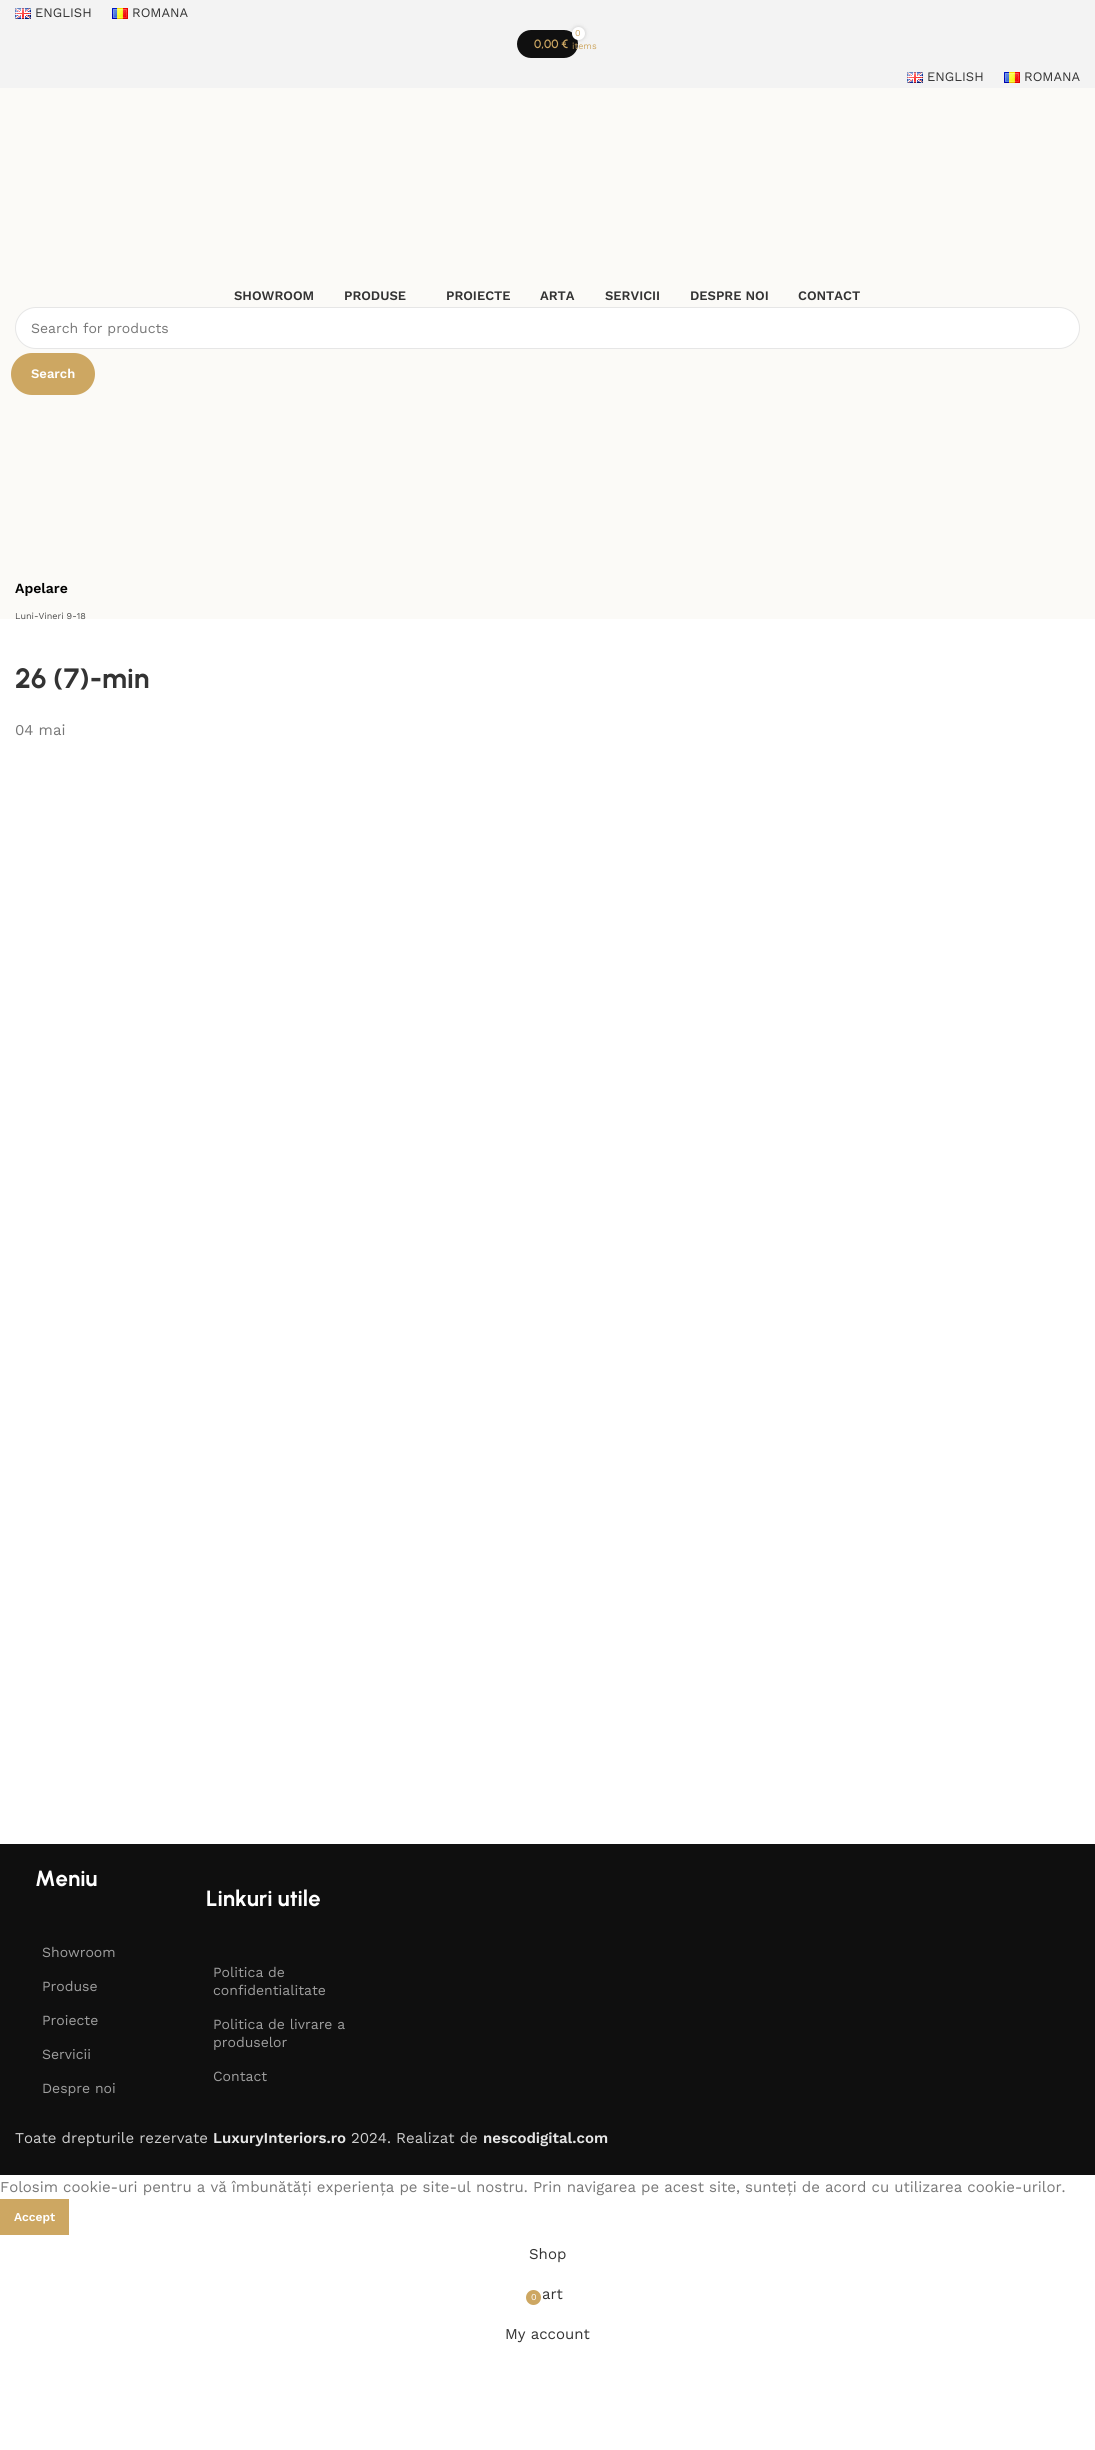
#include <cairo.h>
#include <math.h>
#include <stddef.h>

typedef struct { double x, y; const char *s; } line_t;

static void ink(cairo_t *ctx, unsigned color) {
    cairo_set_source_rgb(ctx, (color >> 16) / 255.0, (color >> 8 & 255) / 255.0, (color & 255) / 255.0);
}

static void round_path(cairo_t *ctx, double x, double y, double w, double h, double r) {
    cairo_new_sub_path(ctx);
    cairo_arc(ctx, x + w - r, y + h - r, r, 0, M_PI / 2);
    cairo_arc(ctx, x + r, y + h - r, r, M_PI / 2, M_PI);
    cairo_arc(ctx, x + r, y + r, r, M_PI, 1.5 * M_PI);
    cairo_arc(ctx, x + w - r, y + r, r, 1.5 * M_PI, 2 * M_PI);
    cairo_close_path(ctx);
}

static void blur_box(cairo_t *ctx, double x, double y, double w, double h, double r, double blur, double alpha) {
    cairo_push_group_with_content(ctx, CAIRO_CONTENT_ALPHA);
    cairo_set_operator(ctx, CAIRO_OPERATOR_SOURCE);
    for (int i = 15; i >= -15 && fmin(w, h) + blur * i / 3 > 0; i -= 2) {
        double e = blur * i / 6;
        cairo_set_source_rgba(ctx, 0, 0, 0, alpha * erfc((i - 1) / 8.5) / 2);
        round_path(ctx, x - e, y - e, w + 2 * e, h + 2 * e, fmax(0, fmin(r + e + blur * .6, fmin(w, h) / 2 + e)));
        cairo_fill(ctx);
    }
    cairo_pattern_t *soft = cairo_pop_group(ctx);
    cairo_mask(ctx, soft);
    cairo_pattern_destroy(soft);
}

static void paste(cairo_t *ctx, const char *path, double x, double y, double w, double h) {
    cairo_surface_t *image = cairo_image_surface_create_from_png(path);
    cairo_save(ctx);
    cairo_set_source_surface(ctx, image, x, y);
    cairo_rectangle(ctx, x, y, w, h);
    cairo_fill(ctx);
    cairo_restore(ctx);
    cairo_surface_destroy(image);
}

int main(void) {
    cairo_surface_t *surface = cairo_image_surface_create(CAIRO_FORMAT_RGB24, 1095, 2450);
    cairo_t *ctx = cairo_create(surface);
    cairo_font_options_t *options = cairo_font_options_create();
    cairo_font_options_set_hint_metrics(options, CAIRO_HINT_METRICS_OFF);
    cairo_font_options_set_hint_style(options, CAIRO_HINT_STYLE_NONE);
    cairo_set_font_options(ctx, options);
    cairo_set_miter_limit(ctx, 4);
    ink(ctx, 0xFFFFFF);
    cairo_paint(ctx);
    ink(ctx, 0xF3F3F3);
    cairo_rectangle(ctx, 0, 0, 1095, 88);
    cairo_fill(ctx);
    paste(ctx, "media/1.png", 15, 8, 16, 11);
    cairo_select_font_face(ctx, "Work Sans", CAIRO_FONT_SLANT_NORMAL, CAIRO_FONT_WEIGHT_NORMAL);
    cairo_set_font_size(ctx, 13);
    ink(ctx, 0x333333);
    cairo_move_to(ctx, 35, 17);
    cairo_show_text(ctx, "ENGLISH");
    paste(ctx, "media/2.png", 112, 8, 16, 11);
    cairo_move_to(ctx, 132, 17);
    cairo_show_text(ctx, "ROMANA");
    ink(ctx, 0x101010);
    round_path(ctx, 517, 30, 61, 28, 14);
    cairo_fill(ctx);
    cairo_select_font_face(ctx, "Urbanist SemiBold", CAIRO_FONT_SLANT_NORMAL, CAIRO_FONT_WEIGHT_NORMAL);
    cairo_set_font_size(ctx, 12);
    ink(ctx, 0xCDA762);
    cairo_move_to(ctx, 534, 48);
    cairo_show_text(ctx, "0,00 €");
    ink(ctx, 0x000000);
    blur_box(ctx, 572, 27, 13, 13, 6.5, 2, 0.17);
    ink(ctx, 0xFFFFFF);
    cairo_arc(ctx, 578.5, 33.5, 6.5, 0, 2 * M_PI);
    cairo_fill(ctx);
    cairo_select_font_face(ctx, "Work Sans", CAIRO_FONT_SLANT_NORMAL, CAIRO_FONT_WEIGHT_NORMAL);
    cairo_set_font_size(ctx, 9);
    ink(ctx, 0xCDA762);
    cairo_move_to(ctx, 575, 36);
    cairo_show_text(ctx, "0");
    cairo_move_to(ctx, 572, 49);
    cairo_show_text(ctx, "items");
    paste(ctx, "media/1.png", 907, 72, 16, 11);
    cairo_set_font_size(ctx, 13);
    ink(ctx, 0x333333);
    cairo_move_to(ctx, 927, 81);
    cairo_show_text(ctx, "ENGLISH");
    paste(ctx, "media/2.png", 1004, 72, 16, 11);
    cairo_move_to(ctx, 1024, 81);
    cairo_show_text(ctx, "ROMANA");
    ink(ctx, 0xFBFAF7);
    cairo_rectangle(ctx, 0, 88, 1095, 531);
    cairo_fill(ctx);
    cairo_select_font_face(ctx, "Work Sans SemiBold", CAIRO_FONT_SLANT_NORMAL, CAIRO_FONT_WEIGHT_NORMAL);
    ink(ctx, 0x333333);
    {
        static const line_t items[] = {
            {234, 300, "SHOWROOM"},
            {344, 300, "PRODUSE"},
            {446, 300, "PROIECTE"},
            {540, 300, "ARTA"},
            {605, 300, "SERVICII"},
            {690, 300, "DESPRE NOI"},
            {798, 300, "CONTACT"},
        };
        for (size_t i = 0; i < sizeof items / sizeof *items; i++) {
            cairo_move_to(ctx, items[i].x, items[i].y);
            cairo_show_text(ctx, items[i].s);
        }
    }
    ink(ctx, 0xFFFFFF);
    round_path(ctx, 15, 307, 1065, 42, 21);
    cairo_fill(ctx);
    round_path(ctx, 15.5, 307.5, 1064, 41, 20.5);
    cairo_set_source_rgba(ctx, 0, 0, 0, 0.1);
    cairo_set_line_width(ctx, 1);
    cairo_stroke(ctx);
    cairo_select_font_face(ctx, "Work Sans", CAIRO_FONT_SLANT_NORMAL, CAIRO_FONT_WEIGHT_NORMAL);
    cairo_set_font_size(ctx, 14);
    ink(ctx, 0x777777);
    cairo_move_to(ctx, 31, 333);
    cairo_show_text(ctx, "Search for products");
    ink(ctx, 0xCDA762);
    round_path(ctx, 11, 353, 84, 42, 21);
    cairo_fill(ctx);
    cairo_select_font_face(ctx, "Work Sans SemiBold", CAIRO_FONT_SLANT_NORMAL, CAIRO_FONT_WEIGHT_NORMAL);
    cairo_set_font_size(ctx, 13);
    ink(ctx, 0xFFFFFF);
    cairo_move_to(ctx, 31, 378);
    cairo_show_text(ctx, "Search");
    cairo_set_font_size(ctx, 14);
    ink(ctx, 0x000000);
    cairo_move_to(ctx, 15, 593);
    cairo_show_text(ctx, "Apelare");
    cairo_select_font_face(ctx, "Work Sans", CAIRO_FONT_SLANT_NORMAL, CAIRO_FONT_WEIGHT_NORMAL);
    cairo_set_font_size(ctx, 9);
    ink(ctx, 0x4A4A4A);
    cairo_move_to(ctx, 15, 619);
    cairo_show_text(ctx, "Luni-Vineri 9-18");
    cairo_select_font_face(ctx, "Urbanist", CAIRO_FONT_SLANT_NORMAL, CAIRO_FONT_WEIGHT_BOLD);
    cairo_set_font_size(ctx, 28);
    ink(ctx, 0x333333);
    cairo_move_to(ctx, 15, 688);
    cairo_show_text(ctx, "26 (7)-min");
    cairo_select_font_face(ctx, "Work Sans", CAIRO_FONT_SLANT_NORMAL, CAIRO_FONT_WEIGHT_NORMAL);
    cairo_set_font_size(ctx, 15);
    ink(ctx, 0x777777);
    cairo_move_to(ctx, 15, 735);
    cairo_show_text(ctx, "04 mai");
    ink(ctx, 0x0F0F0F);
    cairo_rectangle(ctx, 0, 1844, 1095, 331);
    cairo_fill(ctx);
    cairo_select_font_face(ctx, "Urbanist", CAIRO_FONT_SLANT_NORMAL, CAIRO_FONT_WEIGHT_BOLD);
    cairo_set_font_size(ctx, 22);
    ink(ctx, 0xFFFFFF);
    cairo_move_to(ctx, 35, 1886);
    cairo_show_text(ctx, "Meniu");
    cairo_select_font_face(ctx, "Work Sans", CAIRO_FONT_SLANT_NORMAL, CAIRO_FONT_WEIGHT_NORMAL);
    cairo_set_font_size(ctx, 14);
    ink(ctx, 0x9F9F9F);
    {
        static const line_t items[] = {
            {42, 1957, "Showroom"},
            {42, 1991, "Produse"},
            {42, 2025, "Proiecte"},
            {42, 2059, "Servicii"},
            {42, 2093, "Despre noi"},
        };
        for (size_t i = 0; i < sizeof items / sizeof *items; i++) {
            cairo_move_to(ctx, items[i].x, items[i].y);
            cairo_show_text(ctx, items[i].s);
        }
    }
    cairo_select_font_face(ctx, "Urbanist", CAIRO_FONT_SLANT_NORMAL, CAIRO_FONT_WEIGHT_BOLD);
    cairo_set_font_size(ctx, 22);
    ink(ctx, 0xFFFFFF);
    cairo_move_to(ctx, 206, 1906);
    cairo_show_text(ctx, "Linkuri utile");
    cairo_select_font_face(ctx, "Work Sans", CAIRO_FONT_SLANT_NORMAL, CAIRO_FONT_WEIGHT_NORMAL);
    cairo_set_font_size(ctx, 14);
    ink(ctx, 0x9F9F9F);
    {
        static const line_t items[] = {
            {213, 1977, "Politica de"},
            {213, 1995, "confidentialitate"},
            {213, 2029, "Politica de livrare a"},
            {213, 2047, "produselor"},
            {213, 2081, "Contact"},
        };
        for (size_t i = 0; i < sizeof items / sizeof *items; i++) {
            cairo_move_to(ctx, items[i].x, items[i].y);
            cairo_show_text(ctx, items[i].s);
        }
    }
    cairo_set_font_size(ctx, 15);
    ink(ctx, 0xCFCFCF);
    cairo_move_to(ctx, 15, 2143);
    cairo_show_text(ctx, "Toate drepturile rezervate");
    cairo_select_font_face(ctx, "Work Sans SemiBold", CAIRO_FONT_SLANT_NORMAL, CAIRO_FONT_WEIGHT_NORMAL);
    ink(ctx, 0xE7E7E7);
    cairo_move_to(ctx, 213, 2143);
    cairo_show_text(ctx, "LuxuryInteriors.ro");
    cairo_select_font_face(ctx, "Work Sans", CAIRO_FONT_SLANT_NORMAL, CAIRO_FONT_WEIGHT_NORMAL);
    ink(ctx, 0xCFCFCF);
    cairo_move_to(ctx, 351, 2143);
    cairo_show_text(ctx, "2024. Realizat de");
    cairo_select_font_face(ctx, "Work Sans SemiBold", CAIRO_FONT_SLANT_NORMAL, CAIRO_FONT_WEIGHT_NORMAL);
    ink(ctx, 0xE7E7E7);
    cairo_move_to(ctx, 483, 2143);
    cairo_show_text(ctx, "nescodigital.com");
    cairo_select_font_face(ctx, "Work Sans", CAIRO_FONT_SLANT_NORMAL, CAIRO_FONT_WEIGHT_NORMAL);
    ink(ctx, 0x777777);
    cairo_move_to(ctx, 0, 2192);
    cairo_show_text(ctx, "Folosim cookie-uri pentru a vă îmbunătăți experiența pe site-ul nostru. Prin navigarea pe acest site, sunteți de acord cu utilizarea cookie-urilor.");
    ink(ctx, 0xCDA762);
    cairo_rectangle(ctx, 0, 2199, 69, 36);
    cairo_fill(ctx);
    cairo_select_font_face(ctx, "Work Sans SemiBold", CAIRO_FONT_SLANT_NORMAL, CAIRO_FONT_WEIGHT_NORMAL);
    cairo_set_font_size(ctx, 12);
    ink(ctx, 0xFFFFFF);
    cairo_move_to(ctx, 14, 2221);
    cairo_show_text(ctx, "Accept");
    cairo_select_font_face(ctx, "Work Sans", CAIRO_FONT_SLANT_NORMAL, CAIRO_FONT_WEIGHT_NORMAL);
    cairo_set_font_size(ctx, 15);
    ink(ctx, 0x333333);
    cairo_move_to(ctx, 529, 2259);
    cairo_show_text(ctx, "Shop");
    ink(ctx, 0xCDA762);
    cairo_new_path(ctx);
    cairo_arc(ctx, 533.5, 2297.5, 7.5, 0, 2 * M_PI);
    cairo_fill(ctx);
    cairo_set_font_size(ctx, 9);
    ink(ctx, 0xFFFFFF);
    cairo_move_to(ctx, 531, 2300);
    cairo_show_text(ctx, "0");
    cairo_set_font_size(ctx, 15);
    ink(ctx, 0x333333);
    cairo_move_to(ctx, 542, 2299);
    cairo_show_text(ctx, "art");
    cairo_move_to(ctx, 505, 2339);
    cairo_show_text(ctx, "My account");
    cairo_surface_write_to_png(surface, "image.png");
    cairo_font_options_destroy(options);
    cairo_destroy(ctx);
    cairo_surface_destroy(surface);
    return 0;
}
